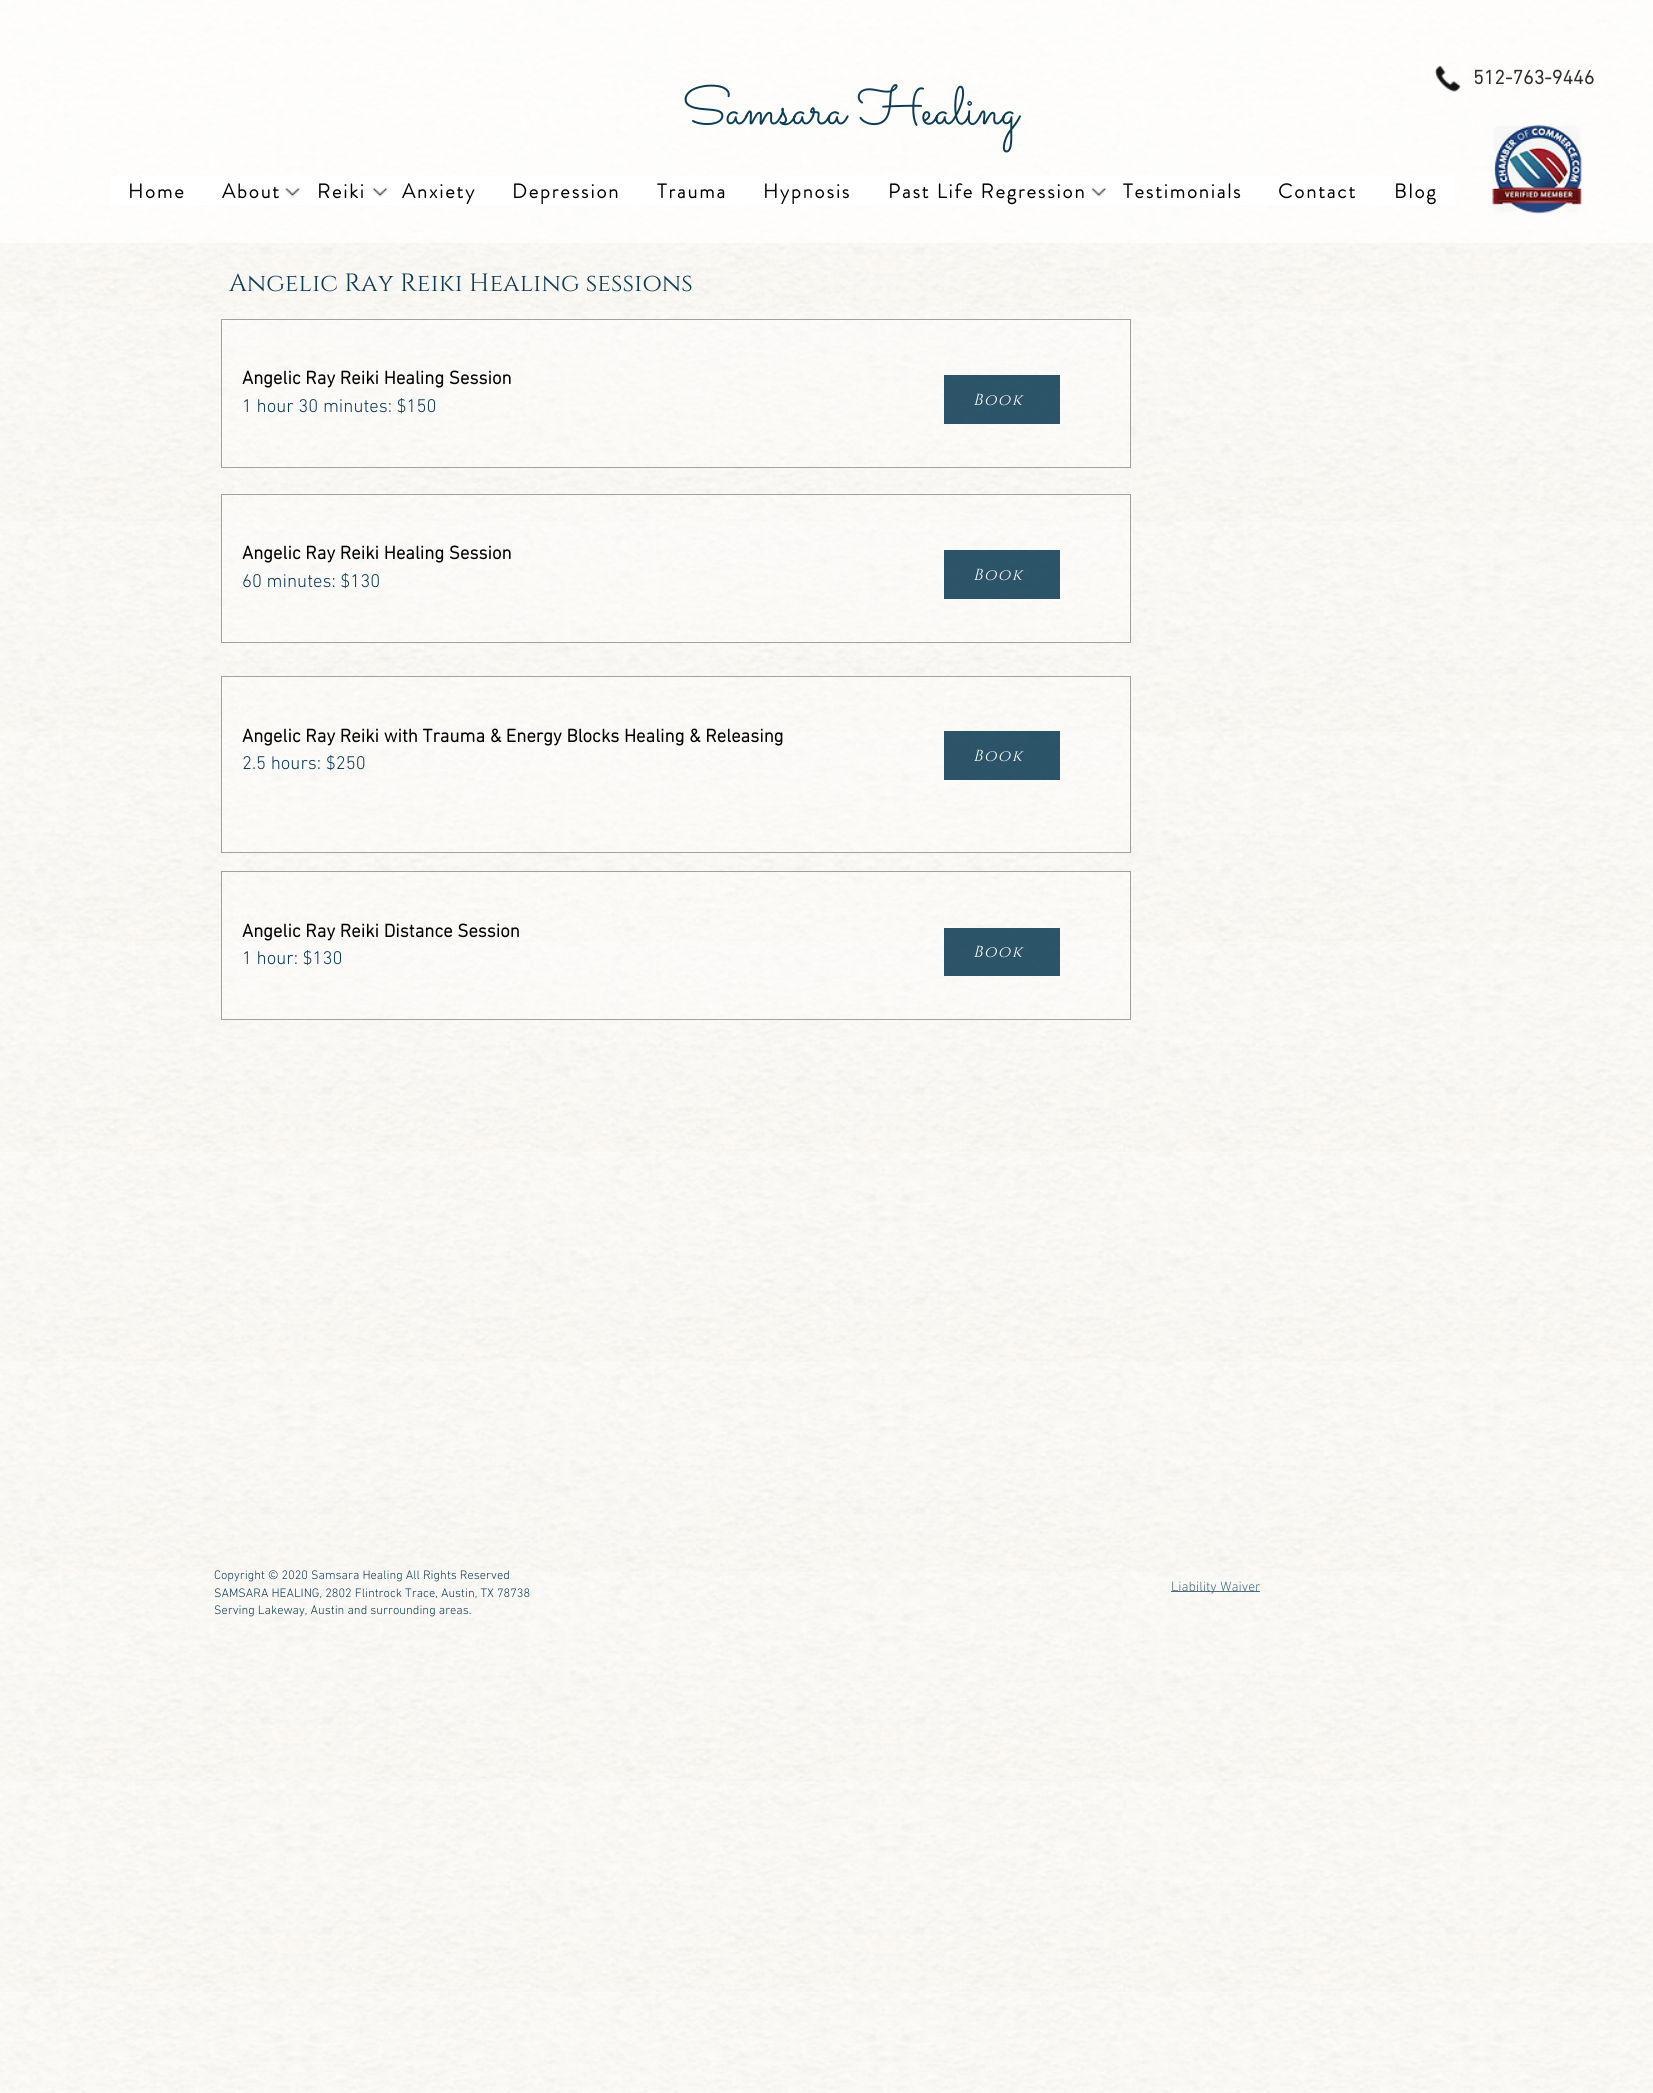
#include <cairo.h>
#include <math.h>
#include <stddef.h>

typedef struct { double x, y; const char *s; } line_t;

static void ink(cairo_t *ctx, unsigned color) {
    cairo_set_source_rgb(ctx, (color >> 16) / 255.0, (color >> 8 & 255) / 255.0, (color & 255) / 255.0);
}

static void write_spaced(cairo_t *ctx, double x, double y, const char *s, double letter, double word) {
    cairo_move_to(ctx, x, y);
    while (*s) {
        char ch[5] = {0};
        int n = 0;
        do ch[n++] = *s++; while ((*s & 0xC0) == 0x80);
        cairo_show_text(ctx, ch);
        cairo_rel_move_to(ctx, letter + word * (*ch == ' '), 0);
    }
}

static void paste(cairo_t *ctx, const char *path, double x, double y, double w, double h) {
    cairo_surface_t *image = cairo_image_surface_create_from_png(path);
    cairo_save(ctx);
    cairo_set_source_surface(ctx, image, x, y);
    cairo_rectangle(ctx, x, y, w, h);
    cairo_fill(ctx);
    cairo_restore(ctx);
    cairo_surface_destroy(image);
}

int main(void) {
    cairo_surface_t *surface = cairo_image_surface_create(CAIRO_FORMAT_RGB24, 1653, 2093);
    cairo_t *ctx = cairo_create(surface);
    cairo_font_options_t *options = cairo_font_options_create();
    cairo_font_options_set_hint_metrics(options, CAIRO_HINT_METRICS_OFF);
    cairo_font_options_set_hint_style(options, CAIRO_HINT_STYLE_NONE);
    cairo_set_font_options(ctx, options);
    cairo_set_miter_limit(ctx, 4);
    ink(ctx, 0xFFFFFF);
    cairo_paint(ctx);
    paste(ctx, "media/1.png", 0, 0, 1653, 2093);
    cairo_set_source_rgba(ctx, 1, 1, 1, 0.7);
    cairo_rectangle(ctx, 0, 0, 1653, 243);
    cairo_fill(ctx);
    paste(ctx, "media/2.png", 1435, 66, 26, 26);
    cairo_select_font_face(ctx, "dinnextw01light", CAIRO_FONT_SLANT_NORMAL, CAIRO_FONT_WEIGHT_BOLD);
    cairo_set_font_size(ctx, 20);
    ink(ctx, 0x2F2E2E);
    cairo_move_to(ctx, 1473, 84);
    cairo_show_text(ctx, "512-763-9446");
    cairo_select_font_face(ctx, "Sacramento", CAIRO_FONT_SLANT_NORMAL, CAIRO_FONT_WEIGHT_NORMAL);
    cairo_set_font_size(ctx, 53.75);
    ink(ctx, 0x0E3C53);
    cairo_move_to(ctx, 682, 124);
    cairo_show_text(ctx, "Samsara Healing");
    paste(ctx, "media/3.png", 1492, 124, 90, 90);
    ink(ctx, 0xFFFFFF);
    cairo_rectangle(ctx, 110, 176, 1345, 29);
    cairo_fill(ctx);
    cairo_select_font_face(ctx, "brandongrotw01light", CAIRO_FONT_SLANT_NORMAL, CAIRO_FONT_WEIGHT_BOLD);
    cairo_set_font_size(ctx, 20);
    ink(ctx, 0x000000);
    {
        static const line_t items[] = {
            {128, 198, "Home"},
            {222, 198, "About"},
            {317, 198, "Reiki"},
            {402, 198, "Anxiety"},
            {512, 198, "Depression"},
            {657, 198, "Trauma"},
            {763, 198, "Hypnosis"},
            {888, 198, "Past Life Regression"},
            {1123, 198, "Testimonials"},
            {1278, 198, "Contact"},
            {1394, 198, "Blog"},
        };
        for (size_t i = 0; i < sizeof items / sizeof *items; i++) {
            write_spaced(ctx, items[i].x, items[i].y, items[i].s, 2, 0);
        }
    }
    paste(ctx, "media/4.png", 285, 187, 15, 10);
    paste(ctx, "media/5.png", 372, 187, 16, 10);
    paste(ctx, "media/6.png", 1091, 187, 16, 10);
    cairo_select_font_face(ctx, "Cinzel", CAIRO_FONT_SLANT_NORMAL, CAIRO_FONT_WEIGHT_NORMAL);
    cairo_set_font_size(ctx, 25);
    ink(ctx, 0x0E3C53);
    cairo_move_to(ctx, 229, 291);
    cairo_show_text(ctx, "Angelic Ray Reiki Healing sessions");
    cairo_set_source_rgba(ctx, 1, 1, 1, 0.3);
    cairo_rectangle(ctx, 221.5, 319.5, 909, 148);
    cairo_fill_preserve(ctx);
    ink(ctx, 0xA0A09F);
    cairo_set_line_width(ctx, 1);
    cairo_stroke(ctx);
    cairo_select_font_face(ctx, "dinnextw01light", CAIRO_FONT_SLANT_NORMAL, CAIRO_FONT_WEIGHT_BOLD);
    cairo_set_font_size(ctx, 18.75);
    ink(ctx, 0x000000);
    cairo_move_to(ctx, 242, 384);
    cairo_show_text(ctx, "Angelic Ray Reiki Healing Session");
    cairo_select_font_face(ctx, "dinnextw01light Light", CAIRO_FONT_SLANT_NORMAL, CAIRO_FONT_WEIGHT_NORMAL);
    ink(ctx, 0x0E3C53);
    cairo_move_to(ctx, 242, 412);
    cairo_show_text(ctx, "1 hour 30 minutes: $150");
    cairo_set_source_rgba(ctx, 0.055, 0.235, 0.325, 0.87);
    cairo_rectangle(ctx, 944, 375, 116, 49);
    cairo_fill(ctx);
    cairo_select_font_face(ctx, "Cinzel", CAIRO_FONT_SLANT_ITALIC, CAIRO_FONT_WEIGHT_NORMAL);
    cairo_set_font_size(ctx, 16);
    ink(ctx, 0xFFFFFF);
    write_spaced(ctx, 973, 405, "Book", 1.5, 0);
    cairo_set_source_rgba(ctx, 1, 1, 1, 0.3);
    cairo_rectangle(ctx, 221.5, 494.5, 909, 148);
    cairo_fill_preserve(ctx);
    ink(ctx, 0xA0A09F);
    cairo_stroke(ctx);
    cairo_select_font_face(ctx, "dinnextw01light", CAIRO_FONT_SLANT_NORMAL, CAIRO_FONT_WEIGHT_BOLD);
    cairo_set_font_size(ctx, 18.75);
    ink(ctx, 0x000000);
    cairo_move_to(ctx, 242, 559);
    cairo_show_text(ctx, "Angelic Ray Reiki Healing Session");
    cairo_select_font_face(ctx, "dinnextw01light Light", CAIRO_FONT_SLANT_NORMAL, CAIRO_FONT_WEIGHT_NORMAL);
    ink(ctx, 0x0E3C53);
    cairo_move_to(ctx, 242, 587);
    cairo_show_text(ctx, "60 minutes: $130");
    cairo_set_source_rgba(ctx, 0.055, 0.235, 0.325, 0.87);
    cairo_rectangle(ctx, 944, 550, 116, 49);
    cairo_fill(ctx);
    cairo_select_font_face(ctx, "Cinzel", CAIRO_FONT_SLANT_ITALIC, CAIRO_FONT_WEIGHT_NORMAL);
    cairo_set_font_size(ctx, 16);
    ink(ctx, 0xFFFFFF);
    write_spaced(ctx, 973, 580, "Book", 1.5, 0);
    cairo_set_source_rgba(ctx, 1, 1, 1, 0.3);
    cairo_rectangle(ctx, 221.5, 676.5, 909, 176);
    cairo_fill_preserve(ctx);
    ink(ctx, 0xA0A09F);
    cairo_stroke(ctx);
    cairo_select_font_face(ctx, "dinnextw01light", CAIRO_FONT_SLANT_NORMAL, CAIRO_FONT_WEIGHT_BOLD);
    cairo_set_font_size(ctx, 18.75);
    ink(ctx, 0x000000);
    cairo_move_to(ctx, 242, 742);
    cairo_show_text(ctx, "Angelic Ray Reiki with Trauma & Energy Blocks Healing & Releasing");
    cairo_select_font_face(ctx, "dinnextw01light Light", CAIRO_FONT_SLANT_NORMAL, CAIRO_FONT_WEIGHT_NORMAL);
    ink(ctx, 0x0E3C53);
    cairo_move_to(ctx, 242, 769);
    cairo_show_text(ctx, "2.5 hours: $250");
    cairo_set_source_rgba(ctx, 0.055, 0.235, 0.325, 0.87);
    cairo_rectangle(ctx, 944, 731, 116, 49);
    cairo_fill(ctx);
    cairo_select_font_face(ctx, "Cinzel", CAIRO_FONT_SLANT_ITALIC, CAIRO_FONT_WEIGHT_NORMAL);
    cairo_set_font_size(ctx, 16);
    ink(ctx, 0xFFFFFF);
    write_spaced(ctx, 973, 761, "Book", 1.5, 0);
    cairo_set_source_rgba(ctx, 1, 1, 1, 0.3);
    cairo_rectangle(ctx, 221.5, 871.5, 909, 148);
    cairo_fill_preserve(ctx);
    ink(ctx, 0xA0A09F);
    cairo_stroke(ctx);
    cairo_select_font_face(ctx, "dinnextw01light", CAIRO_FONT_SLANT_NORMAL, CAIRO_FONT_WEIGHT_BOLD);
    cairo_set_font_size(ctx, 18.75);
    ink(ctx, 0x000000);
    cairo_move_to(ctx, 242, 937);
    cairo_show_text(ctx, "Angelic Ray Reiki Distance Session");
    cairo_select_font_face(ctx, "dinnextw01light Light", CAIRO_FONT_SLANT_NORMAL, CAIRO_FONT_WEIGHT_NORMAL);
    ink(ctx, 0x0E3C53);
    cairo_move_to(ctx, 242, 964);
    cairo_show_text(ctx, "1 hour: $130");
    cairo_set_source_rgba(ctx, 0.055, 0.235, 0.325, 0.87);
    cairo_rectangle(ctx, 944, 928, 116, 48);
    cairo_fill(ctx);
    cairo_select_font_face(ctx, "Cinzel", CAIRO_FONT_SLANT_ITALIC, CAIRO_FONT_WEIGHT_NORMAL);
    cairo_set_font_size(ctx, 16);
    ink(ctx, 0xFFFFFF);
    write_spaced(ctx, 973, 957, "Book", 1.5, 0);
    cairo_select_font_face(ctx, "dinnextw01light Light", CAIRO_FONT_SLANT_NORMAL, CAIRO_FONT_WEIGHT_NORMAL);
    cairo_set_font_size(ctx, 12.5);
    ink(ctx, 0x0E3C53);
    {
        static const line_t items[] = {
            {214, 1579, "Copyright © 2020 Samsara Healing All Rights Reserved"},
            {214, 1597, "SAMSARA HEALING, 2802 Flintrock Trace, Austin, TX 78738"},
            {214, 1614, "Serving Lakeway, Austin and surrounding areas."},
        };
        for (size_t i = 0; i < sizeof items / sizeof *items; i++) {
            cairo_move_to(ctx, items[i].x, items[i].y);
            cairo_show_text(ctx, items[i].s);
        }
    }
    ink(ctx, 0x4A6D7E);
    cairo_rectangle(ctx, 1171, 1591, 89, 1);
    cairo_fill(ctx);
    cairo_set_font_size(ctx, 13.75);
    cairo_move_to(ctx, 1171, 1591);
    cairo_show_text(ctx, "Liability Waiver");
    cairo_surface_write_to_png(surface, "image.png");
    cairo_font_options_destroy(options);
    cairo_destroy(ctx);
    cairo_surface_destroy(surface);
    return 0;
}
